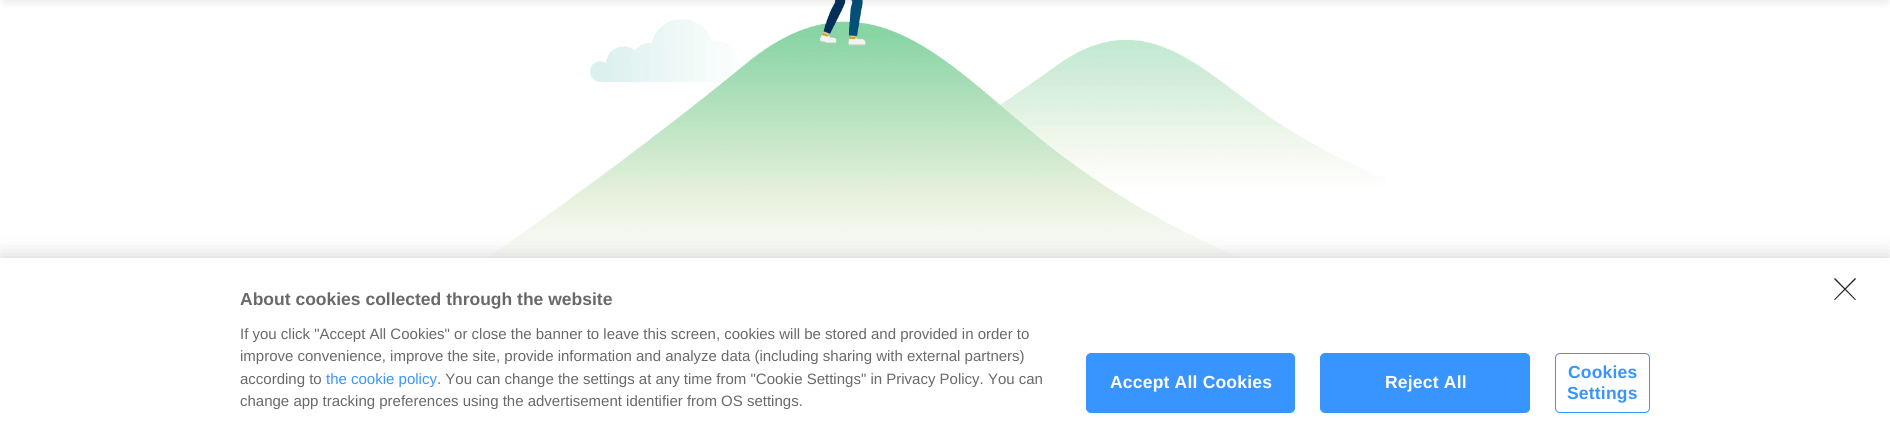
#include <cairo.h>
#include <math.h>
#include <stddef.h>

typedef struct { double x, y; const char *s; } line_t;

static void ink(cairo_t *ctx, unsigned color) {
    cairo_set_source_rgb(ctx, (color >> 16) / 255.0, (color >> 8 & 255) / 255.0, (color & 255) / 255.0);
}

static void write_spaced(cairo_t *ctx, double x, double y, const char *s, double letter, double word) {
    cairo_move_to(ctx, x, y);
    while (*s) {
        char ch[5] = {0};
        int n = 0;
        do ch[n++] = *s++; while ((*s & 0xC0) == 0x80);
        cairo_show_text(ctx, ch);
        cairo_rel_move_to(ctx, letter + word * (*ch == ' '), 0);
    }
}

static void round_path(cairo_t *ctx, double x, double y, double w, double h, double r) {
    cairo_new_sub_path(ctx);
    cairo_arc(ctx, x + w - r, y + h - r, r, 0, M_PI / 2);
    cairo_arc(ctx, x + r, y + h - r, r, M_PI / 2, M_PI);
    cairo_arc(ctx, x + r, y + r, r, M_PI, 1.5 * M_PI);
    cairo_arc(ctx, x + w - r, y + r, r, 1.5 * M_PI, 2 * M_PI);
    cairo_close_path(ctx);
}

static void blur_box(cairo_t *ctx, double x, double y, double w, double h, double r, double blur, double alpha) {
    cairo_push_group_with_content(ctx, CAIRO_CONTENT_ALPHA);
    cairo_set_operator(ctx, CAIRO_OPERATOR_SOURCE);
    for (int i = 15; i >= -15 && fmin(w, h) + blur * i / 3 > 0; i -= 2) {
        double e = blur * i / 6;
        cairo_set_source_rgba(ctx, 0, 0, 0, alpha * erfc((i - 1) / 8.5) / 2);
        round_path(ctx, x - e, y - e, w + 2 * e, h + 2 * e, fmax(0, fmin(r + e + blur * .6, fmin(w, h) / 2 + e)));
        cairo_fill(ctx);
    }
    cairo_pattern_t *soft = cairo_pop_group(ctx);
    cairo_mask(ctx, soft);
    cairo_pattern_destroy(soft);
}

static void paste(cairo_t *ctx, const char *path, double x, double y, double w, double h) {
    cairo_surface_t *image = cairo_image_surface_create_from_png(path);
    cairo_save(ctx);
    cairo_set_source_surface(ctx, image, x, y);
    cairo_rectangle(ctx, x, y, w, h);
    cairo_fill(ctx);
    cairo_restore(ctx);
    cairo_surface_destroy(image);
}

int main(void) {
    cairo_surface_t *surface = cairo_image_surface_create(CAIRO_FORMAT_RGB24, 1890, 442);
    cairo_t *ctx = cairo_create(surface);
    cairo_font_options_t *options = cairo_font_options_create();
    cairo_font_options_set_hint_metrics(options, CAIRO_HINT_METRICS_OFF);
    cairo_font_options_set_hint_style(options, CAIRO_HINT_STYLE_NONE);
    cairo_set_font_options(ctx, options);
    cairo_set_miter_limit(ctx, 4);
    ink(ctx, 0xFFFFFF);
    cairo_paint(ctx);
    paste(ctx, "media/1.png", 489, 0, 897, 258);
    ink(ctx, 0x000000);
    blur_box(ctx, 3, -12, 1885, 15, 0, 4, 0.08);
    blur_box(ctx, 0, 258, 1890, 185, 0, 11, 0.2);
    ink(ctx, 0xFFFFFF);
    cairo_rectangle(ctx, 0, 258, 1890, 184);
    cairo_fill(ctx);
    ink(ctx, 0x242323);
    cairo_new_path(ctx);
    cairo_move_to(ctx, 1834, 299.5);
    cairo_line_to(ctx, 1855, 278);
    cairo_line_to(ctx, 1856, 279);
    cairo_line_to(ctx, 1835, 300);
    cairo_close_path(ctx);
    cairo_fill(ctx);
    cairo_new_path(ctx);
    cairo_move_to(ctx, 1835, 278);
    cairo_line_to(ctx, 1856, 299.5);
    cairo_line_to(ctx, 1855, 300);
    cairo_line_to(ctx, 1834, 279);
    cairo_close_path(ctx);
    cairo_fill(ctx);
    cairo_select_font_face(ctx, "Liberation Sans", CAIRO_FONT_SLANT_NORMAL, CAIRO_FONT_WEIGHT_BOLD);
    cairo_set_font_size(ctx, 17.5);
    ink(ctx, 0x696969);
    cairo_move_to(ctx, 240, 305);
    cairo_show_text(ctx, "About cookies collected through the website");
    cairo_select_font_face(ctx, "Liberation Sans", CAIRO_FONT_SLANT_NORMAL, CAIRO_FONT_WEIGHT_NORMAL);
    cairo_set_font_size(ctx, 15);
    {
        static const line_t items[] = {
            {240, 339, "If you click \"Accept All Cookies\" or close the banner to leave this screen, cookies will be stored and provided in order to"},
            {240, 361, "improve convenience, improve the site, provide information and analyze data (including sharing with external partners)"},
            {240, 384, "according to"},
        };
        for (size_t i = 0; i < sizeof items / sizeof *items; i++) {
            cairo_move_to(ctx, items[i].x, items[i].y);
            cairo_show_text(ctx, items[i].s);
        }
    }
    ink(ctx, 0x3895FF);
    cairo_move_to(ctx, 326, 384);
    cairo_show_text(ctx, "the cookie policy");
    ink(ctx, 0x696969);
    cairo_move_to(ctx, 437, 384);
    cairo_show_text(ctx, ". You can change the settings at any time from \"Cookie Settings\" in Privacy Policy. You can");
    cairo_move_to(ctx, 240, 406);
    cairo_show_text(ctx, "change app tracking preferences using the advertisement identifier from OS settings.");
    ink(ctx, 0x3895FF);
    round_path(ctx, 1086.5, 353.5, 208, 59, 4.5);
    cairo_fill_preserve(ctx);
    cairo_set_line_width(ctx, 1);
    cairo_stroke(ctx);
    cairo_select_font_face(ctx, "Liberation Sans", CAIRO_FONT_SLANT_NORMAL, CAIRO_FONT_WEIGHT_BOLD);
    cairo_set_font_size(ctx, 17.5);
    ink(ctx, 0xFFFFFF);
    write_spaced(ctx, 1110, 388, "Accept All Cookies", 0.2, 0);
    ink(ctx, 0x3895FF);
    round_path(ctx, 1320.5, 353.5, 209, 59, 4.5);
    cairo_fill_preserve(ctx);
    cairo_stroke(ctx);
    ink(ctx, 0xFFFFFF);
    write_spaced(ctx, 1385, 388, "Reject All", 0.2, 0);
    round_path(ctx, 1555.5, 353.5, 94, 59, 4.5);
    ink(ctx, 0x3895FF);
    cairo_stroke(ctx);
    write_spaced(ctx, 1568, 378, "Cookies", 0.2, 0);
    write_spaced(ctx, 1567, 399, "Settings", 0.2, 0);
    cairo_surface_write_to_png(surface, "image.png");
    cairo_font_options_destroy(options);
    cairo_destroy(ctx);
    cairo_surface_destroy(surface);
    return 0;
}
